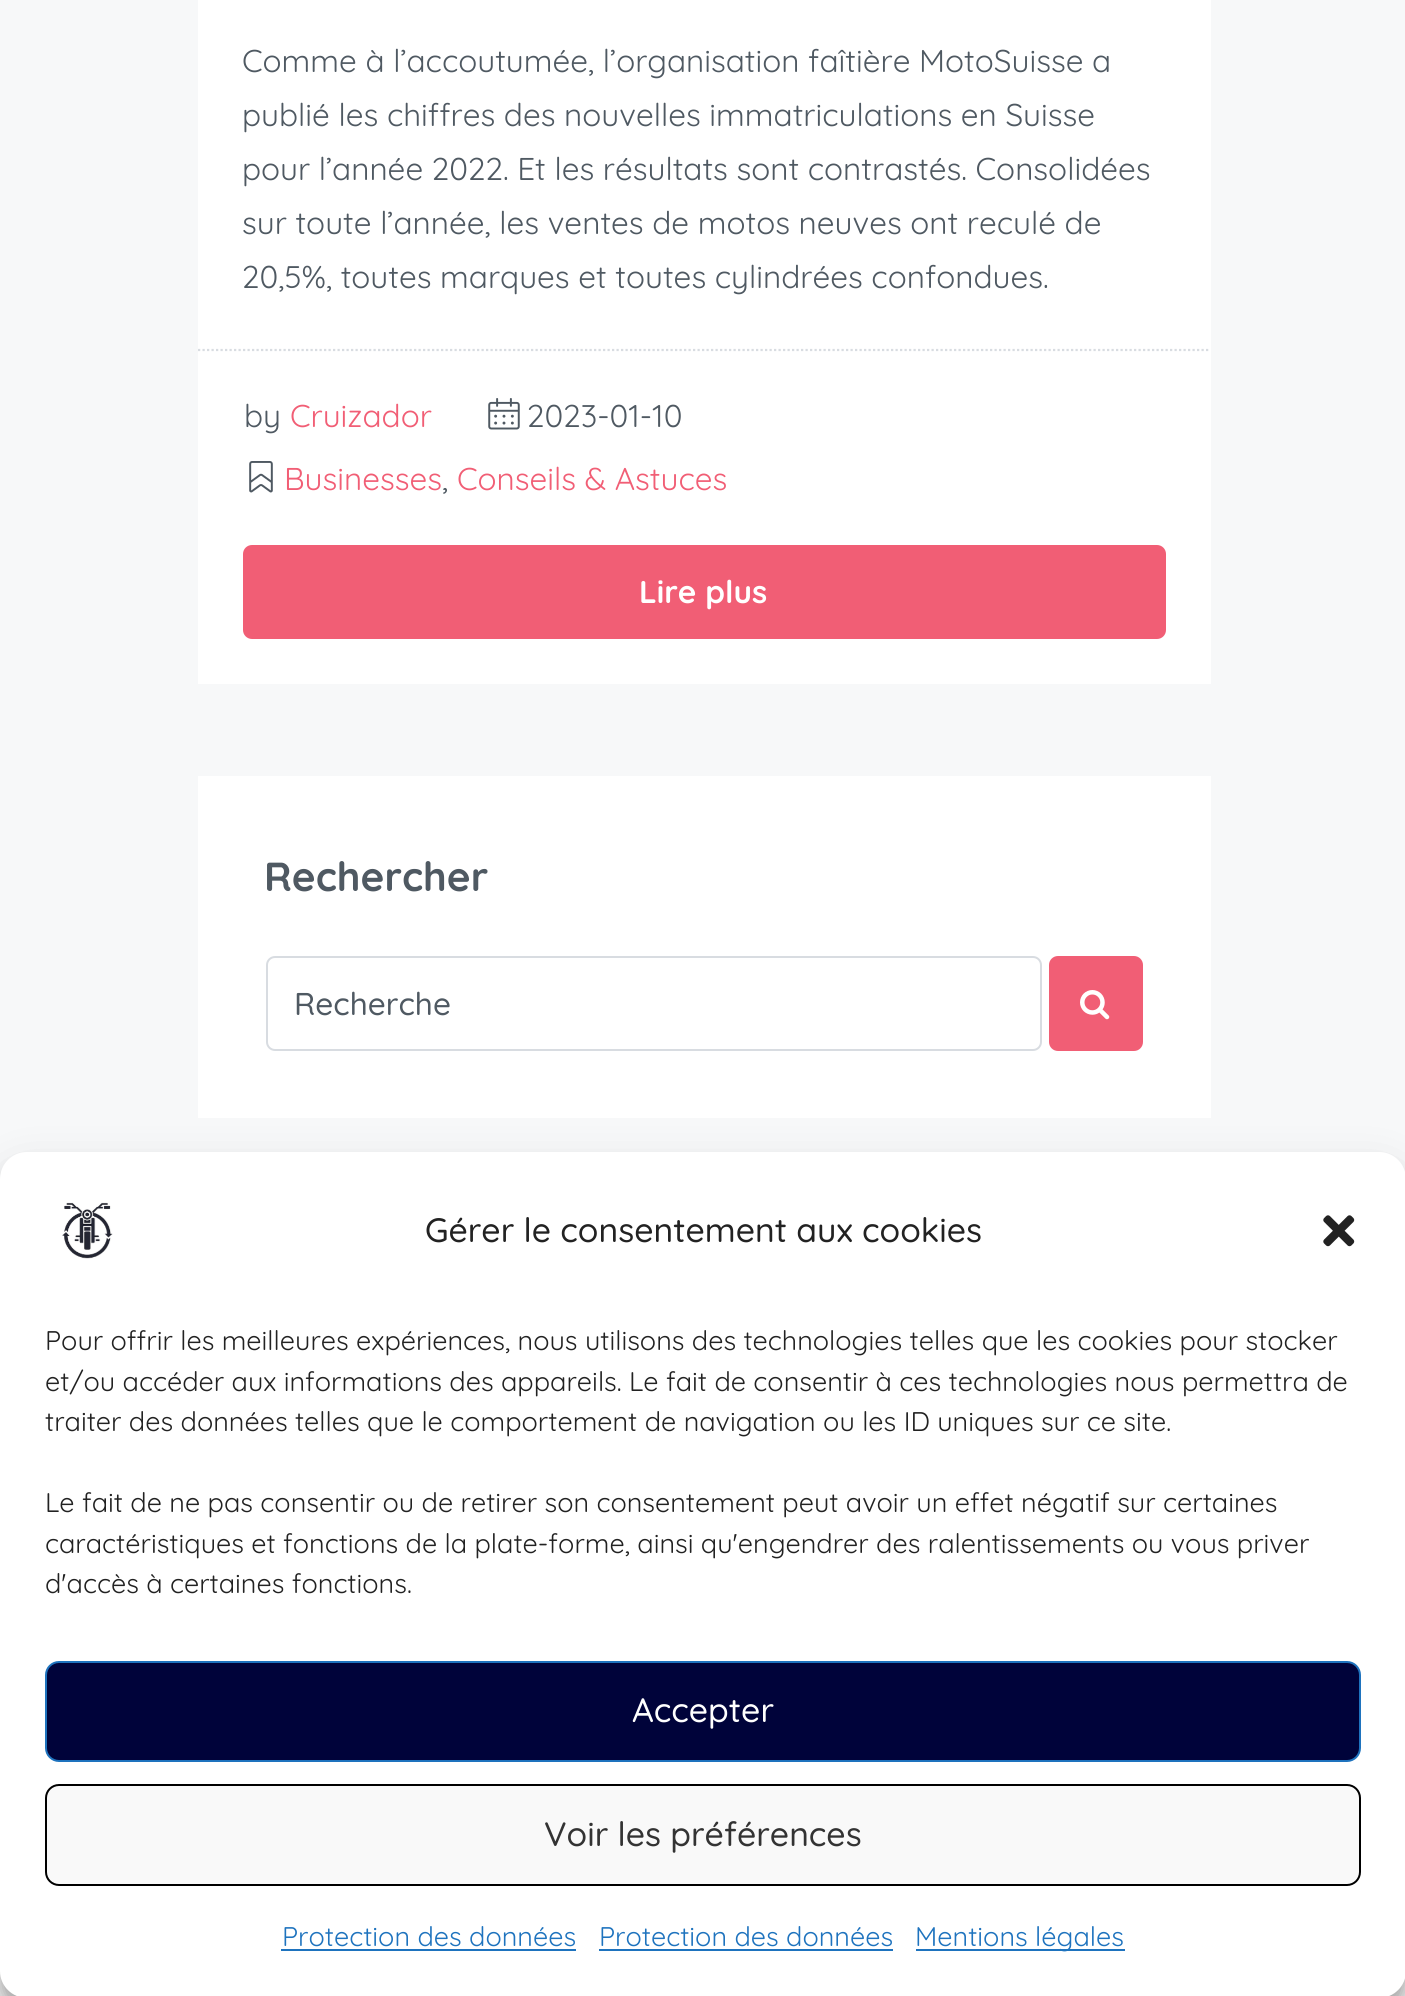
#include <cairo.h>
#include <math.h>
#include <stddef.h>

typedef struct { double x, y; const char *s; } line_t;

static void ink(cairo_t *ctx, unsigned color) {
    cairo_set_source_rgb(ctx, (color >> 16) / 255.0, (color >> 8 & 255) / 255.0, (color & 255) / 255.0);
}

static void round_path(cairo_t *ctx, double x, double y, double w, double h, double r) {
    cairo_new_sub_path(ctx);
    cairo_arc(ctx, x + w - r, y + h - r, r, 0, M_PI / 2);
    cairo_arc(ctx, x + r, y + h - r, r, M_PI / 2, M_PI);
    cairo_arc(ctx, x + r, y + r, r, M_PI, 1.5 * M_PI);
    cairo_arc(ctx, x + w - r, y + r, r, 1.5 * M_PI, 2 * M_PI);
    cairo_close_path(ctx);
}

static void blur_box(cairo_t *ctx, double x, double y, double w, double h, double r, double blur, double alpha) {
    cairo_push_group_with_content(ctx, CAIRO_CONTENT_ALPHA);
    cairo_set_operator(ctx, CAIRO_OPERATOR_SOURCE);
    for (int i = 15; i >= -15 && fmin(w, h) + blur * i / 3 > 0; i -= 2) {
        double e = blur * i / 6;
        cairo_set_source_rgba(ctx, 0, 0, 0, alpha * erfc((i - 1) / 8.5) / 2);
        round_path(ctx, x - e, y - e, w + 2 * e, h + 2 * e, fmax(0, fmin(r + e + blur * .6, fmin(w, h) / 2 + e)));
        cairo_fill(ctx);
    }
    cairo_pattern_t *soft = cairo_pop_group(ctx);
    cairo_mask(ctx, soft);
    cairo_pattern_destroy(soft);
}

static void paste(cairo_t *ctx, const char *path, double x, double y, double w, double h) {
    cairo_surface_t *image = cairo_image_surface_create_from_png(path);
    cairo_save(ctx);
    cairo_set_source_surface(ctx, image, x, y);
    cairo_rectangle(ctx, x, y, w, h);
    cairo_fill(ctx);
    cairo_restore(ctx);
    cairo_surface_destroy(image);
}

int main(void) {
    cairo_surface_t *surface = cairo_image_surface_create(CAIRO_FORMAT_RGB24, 1405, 1996);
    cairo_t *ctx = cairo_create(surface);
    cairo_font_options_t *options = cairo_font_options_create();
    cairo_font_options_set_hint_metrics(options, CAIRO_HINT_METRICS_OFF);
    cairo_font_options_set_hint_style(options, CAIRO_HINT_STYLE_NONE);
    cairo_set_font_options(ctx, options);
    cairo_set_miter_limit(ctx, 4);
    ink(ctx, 0xF7F8F9);
    cairo_paint(ctx);
    ink(ctx, 0xFFFFFF);
    cairo_rectangle(ctx, 198, 0, 1013, 684);
    cairo_fill(ctx);
    cairo_select_font_face(ctx, "Quicksand", CAIRO_FONT_SLANT_NORMAL, CAIRO_FONT_WEIGHT_NORMAL);
    cairo_set_font_size(ctx, 31.5);
    ink(ctx, 0x4F5962);
    {
        static const line_t items[] = {
            {242, 72, "Comme à l’accoutumée, l’organisation faîtière MotoSuisse a"},
            {242, 126, "publié les chiffres des nouvelles immatriculations en Suisse"},
            {242, 180, "pour l’année 2022. Et les résultats sont contrastés. Consolidées"},
            {242, 234, "sur toute l’année, les ventes de motos neuves ont reculé de"},
            {242, 288, "20,5%, toutes marques et toutes cylindrées confondues."},
        };
        for (size_t i = 0; i < sizeof items / sizeof *items; i++) {
            cairo_move_to(ctx, items[i].x, items[i].y);
            cairo_show_text(ctx, items[i].s);
        }
    }
    cairo_new_path(ctx);
    cairo_move_to(ctx, 198, 350);
    cairo_line_to(ctx, 1210.5, 350);
    ink(ctx, 0xD8DCE1);
    cairo_set_line_width(ctx, 2.2);
    cairo_set_dash(ctx, (double[]){2.25, 2.25}, 2, 0);
    cairo_stroke(ctx);
    ink(ctx, 0x4F5962);
    cairo_move_to(ctx, 244, 427);
    cairo_show_text(ctx, "by");
    ink(ctx, 0xF15E75);
    cairo_move_to(ctx, 290, 427);
    cairo_show_text(ctx, "Cruizador");
    paste(ctx, "media/1.png", 488, 398, 32, 32);
    ink(ctx, 0x4F5962);
    cairo_move_to(ctx, 527, 427);
    cairo_show_text(ctx, "2023-01-10");
    paste(ctx, "media/2.png", 249, 461, 24, 32);
    ink(ctx, 0xF15E75);
    cairo_move_to(ctx, 284, 490);
    cairo_show_text(ctx, "Businesses");
    ink(ctx, 0x4F5962);
    cairo_move_to(ctx, 442, 490);
    cairo_show_text(ctx, ",");
    ink(ctx, 0xF15E75);
    cairo_move_to(ctx, 457, 490);
    cairo_show_text(ctx, "Conseils & Astuces");
    round_path(ctx, 244, 546, 921, 92, 8);
    cairo_fill_preserve(ctx);
    cairo_set_line_width(ctx, 2);
    cairo_set_dash(ctx, NULL, 0, 0);
    cairo_stroke(ctx);
    cairo_select_font_face(ctx, "Quicksand", CAIRO_FONT_SLANT_NORMAL, CAIRO_FONT_WEIGHT_BOLD);
    ink(ctx, 0xFFFFFF);
    cairo_move_to(ctx, 639, 603);
    cairo_show_text(ctx, "Lire plus");
    cairo_rectangle(ctx, 198, 776, 1013, 342);
    cairo_fill(ctx);
    cairo_set_font_size(ctx, 40.5);
    ink(ctx, 0x4F5962);
    cairo_move_to(ctx, 264, 891);
    cairo_show_text(ctx, "Rechercher");
    round_path(ctx, 267, 957, 774, 93, 8);
    ink(ctx, 0xD8DCE1);
    cairo_stroke(ctx);
    cairo_select_font_face(ctx, "Quicksand Medium", CAIRO_FONT_SLANT_NORMAL, CAIRO_FONT_WEIGHT_NORMAL);
    cairo_set_font_size(ctx, 31.5);
    ink(ctx, 0x4F5962);
    cairo_move_to(ctx, 294, 1015);
    cairo_show_text(ctx, "Recherche");
    ink(ctx, 0xF15E75);
    round_path(ctx, 1050, 957, 92, 93, 8);
    cairo_fill_preserve(ctx);
    cairo_stroke(ctx);
    paste(ctx, "media/3.png", 1080, 990, 30, 30);
    ink(ctx, 0xFFFFFF);
    cairo_rectangle(ctx, 0, 1971, 1405, 25);
    cairo_fill(ctx);
    ink(ctx, 0x000000);
    blur_box(ctx, 0, 1166, 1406, 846, 27, 7, 0.23);
    blur_box(ctx, 0, 1175, 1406, 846, 27, 22.5, 0.19);
    ink(ctx, 0xFFFFFF);
    round_path(ctx, 0, 1152, 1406, 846, 27);
    cairo_fill(ctx);
    paste(ctx, "media/4.png", 62, 1202, 51, 57);
    cairo_set_font_size(ctx, 33.75);
    ink(ctx, 0x222222);
    cairo_move_to(ctx, 425, 1242);
    cairo_show_text(ctx, "Gérer le consentement aux cookies");
    paste(ctx, "media/5.png", 1323, 1215, 32, 32);
    cairo_select_font_face(ctx, "Quicksand", CAIRO_FONT_SLANT_NORMAL, CAIRO_FONT_WEIGHT_NORMAL);
    cairo_set_font_size(ctx, 27);
    {
        static const line_t items[] = {
            {45, 1350, "Pour offrir les meilleures expériences, nous utilisons des technologies telles que les cookies pour stocker"},
            {45, 1391, "et/ou accéder aux informations des appareils. Le fait de consentir à ces technologies nous permettra de"},
            {45, 1431, "traiter des données telles que le comportement de navigation ou les ID uniques sur ce site."},
            {45, 1512, "Le fait de ne pas consentir ou de retirer son consentement peut avoir un effet négatif sur certaines"},
            {45, 1553, "caractéristiques et fonctions de la plate-forme, ainsi qu'engendrer des ralentissements ou vous priver"},
            {45, 1593, "d'accès à certaines fonctions."},
        };
        for (size_t i = 0; i < sizeof items / sizeof *items; i++) {
            cairo_move_to(ctx, items[i].x, items[i].y);
            cairo_show_text(ctx, items[i].s);
        }
    }
    ink(ctx, 0x00033A);
    round_path(ctx, 46, 1662, 1314, 99, 13);
    cairo_fill_preserve(ctx);
    ink(ctx, 0x1E73BE);
    cairo_stroke(ctx);
    cairo_select_font_face(ctx, "Quicksand Medium", CAIRO_FONT_SLANT_NORMAL, CAIRO_FONT_WEIGHT_NORMAL);
    cairo_set_font_size(ctx, 33.75);
    ink(ctx, 0xFFFFFF);
    cairo_move_to(ctx, 632, 1722);
    cairo_show_text(ctx, "Accepter");
    ink(ctx, 0xF9F9F9);
    round_path(ctx, 46, 1785, 1314, 100, 13);
    cairo_fill_preserve(ctx);
    ink(ctx, 0x000000);
    cairo_stroke(ctx);
    ink(ctx, 0x333333);
    cairo_move_to(ctx, 544, 1846);
    cairo_show_text(ctx, "Voir les préférences");
    cairo_select_font_face(ctx, "Quicksand", CAIRO_FONT_SLANT_NORMAL, CAIRO_FONT_WEIGHT_NORMAL);
    cairo_set_font_size(ctx, 27);
    ink(ctx, 0x1E73BE);
    cairo_move_to(ctx, 282, 1946);
    cairo_show_text(ctx, "Protection des données");
    cairo_rectangle(ctx, 281, 1949, 295, 2);
    cairo_fill(ctx);
    cairo_move_to(ctx, 599, 1946);
    cairo_show_text(ctx, "Protection des données");
    cairo_rectangle(ctx, 599, 1949, 294, 2);
    cairo_fill(ctx);
    cairo_rectangle(ctx, 916, 1949, 209, 2);
    cairo_fill(ctx);
    cairo_move_to(ctx, 915, 1946);
    cairo_show_text(ctx, "Mentions légales");
    cairo_surface_write_to_png(surface, "image.png");
    cairo_font_options_destroy(options);
    cairo_destroy(ctx);
    cairo_surface_destroy(surface);
    return 0;
}
